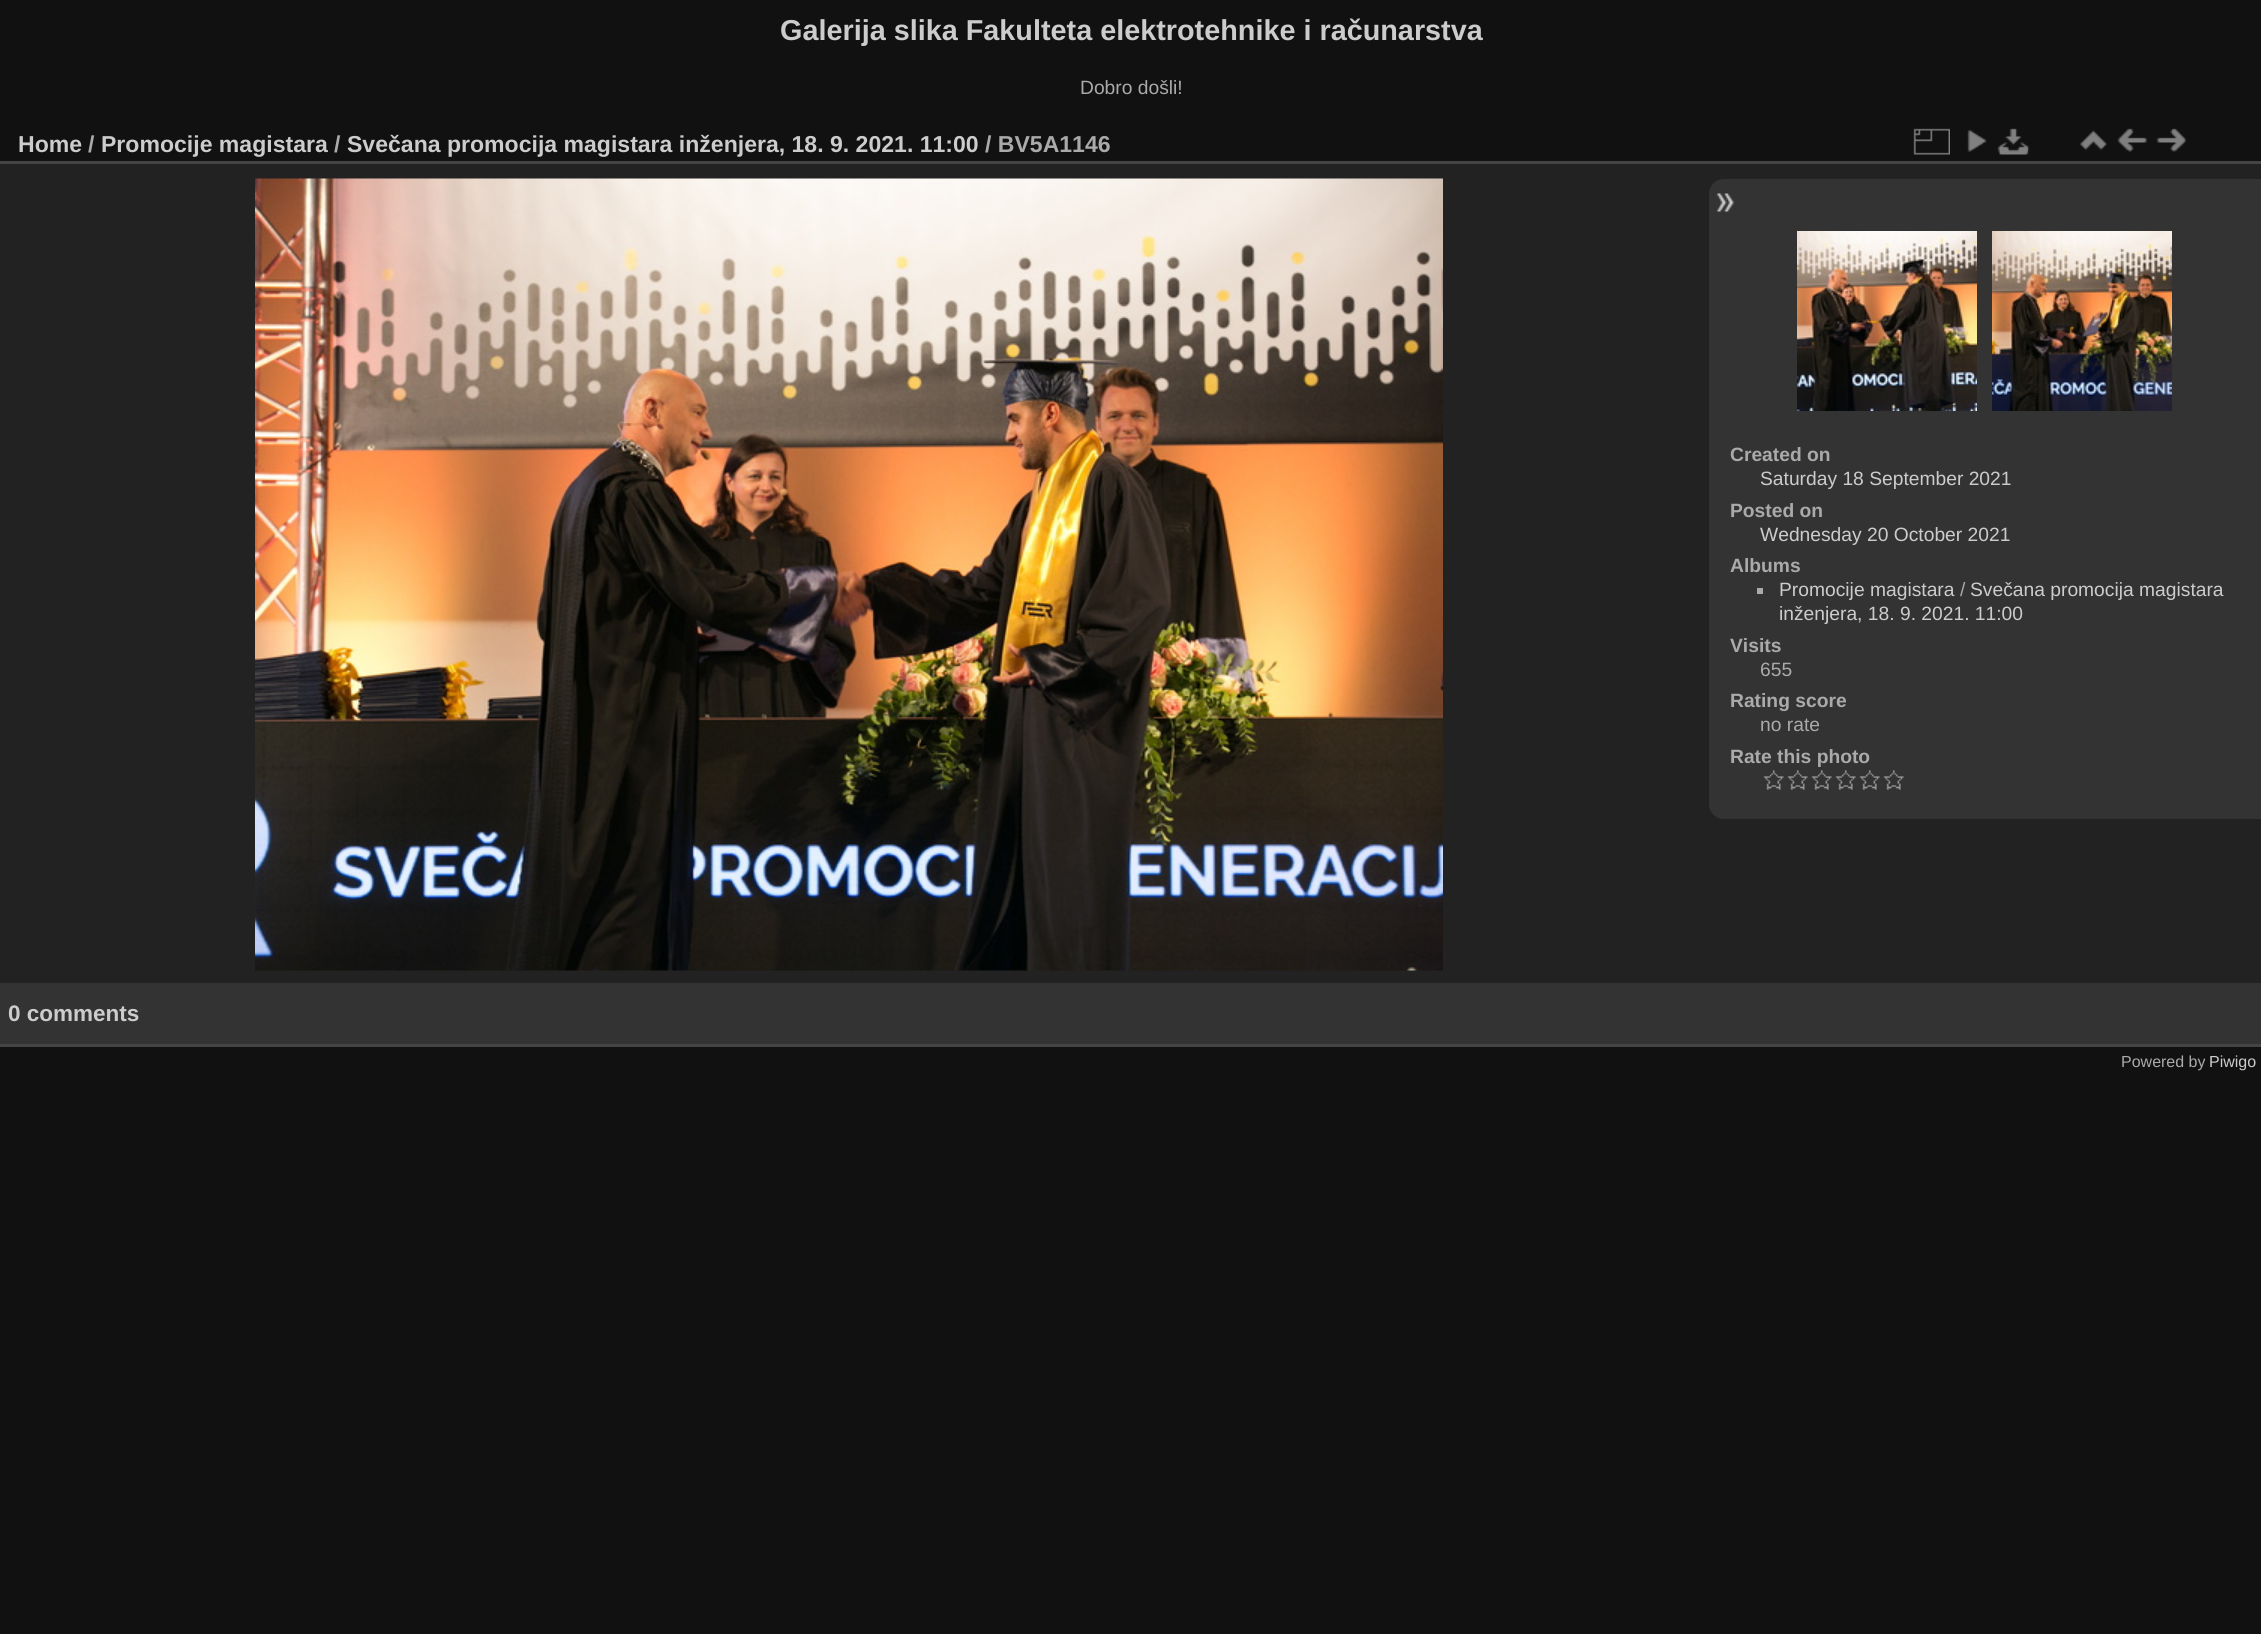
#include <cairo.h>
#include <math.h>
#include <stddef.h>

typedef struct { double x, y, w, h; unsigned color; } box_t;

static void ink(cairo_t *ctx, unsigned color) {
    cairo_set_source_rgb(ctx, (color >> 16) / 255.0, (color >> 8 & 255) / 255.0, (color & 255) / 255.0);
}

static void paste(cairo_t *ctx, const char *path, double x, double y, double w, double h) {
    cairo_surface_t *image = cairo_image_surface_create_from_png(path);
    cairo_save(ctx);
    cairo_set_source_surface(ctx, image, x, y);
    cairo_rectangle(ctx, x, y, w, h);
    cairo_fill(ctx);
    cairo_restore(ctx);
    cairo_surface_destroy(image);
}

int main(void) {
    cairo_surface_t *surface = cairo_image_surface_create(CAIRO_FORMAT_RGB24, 2261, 1634);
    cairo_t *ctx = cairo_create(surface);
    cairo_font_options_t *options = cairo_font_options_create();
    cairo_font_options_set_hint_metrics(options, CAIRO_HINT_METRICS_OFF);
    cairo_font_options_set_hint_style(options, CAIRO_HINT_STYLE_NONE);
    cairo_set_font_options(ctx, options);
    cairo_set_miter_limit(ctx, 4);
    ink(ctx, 0x111111);
    cairo_paint(ctx);
    cairo_select_font_face(ctx, "Liberation Sans", CAIRO_FONT_SLANT_NORMAL, CAIRO_FONT_WEIGHT_BOLD);
    cairo_set_font_size(ctx, 28.8);
    ink(ctx, 0xCCCCCC);
    cairo_move_to(ctx, 780, 40);
    cairo_show_text(ctx, "Galerija slika Fakulteta elektrotehnike i računarstva");
    cairo_select_font_face(ctx, "Liberation Sans", CAIRO_FONT_SLANT_NORMAL, CAIRO_FONT_WEIGHT_NORMAL);
    cairo_set_font_size(ctx, 19.25);
    ink(ctx, 0xAAAAAA);
    cairo_move_to(ctx, 1080, 94);
    cairo_show_text(ctx, "Dobro došli!");
    {
        static const box_t items[] = {
            {0, 164, 2261, 819, 0x222222},
            {0, 1044, 2261, 3, 0x444444},
            {0, 161, 2261, 3, 0x444444},
        };
        for (size_t i = 0; i < sizeof items / sizeof *items; i++) {
            ink(ctx, items[i].color);
            cairo_rectangle(ctx, items[i].x, items[i].y, items[i].w, items[i].h);
            cairo_fill(ctx);
        }
    }
    cairo_select_font_face(ctx, "Liberation Sans", CAIRO_FONT_SLANT_NORMAL, CAIRO_FONT_WEIGHT_BOLD);
    cairo_set_font_size(ctx, 23.05);
    ink(ctx, 0xCCCCCC);
    cairo_move_to(ctx, 18, 152);
    cairo_show_text(ctx, "Home");
    ink(ctx, 0xAAAAAA);
    cairo_move_to(ctx, 88, 152);
    cairo_show_text(ctx, "/");
    ink(ctx, 0xCCCCCC);
    cairo_move_to(ctx, 101, 152);
    cairo_show_text(ctx, "Promocije magistara");
    ink(ctx, 0xAAAAAA);
    cairo_move_to(ctx, 334, 152);
    cairo_show_text(ctx, "/");
    ink(ctx, 0xCCCCCC);
    cairo_move_to(ctx, 347, 152);
    cairo_show_text(ctx, "Svečana promocija magistara inženjera, 18. 9. 2021. 11:00");
    ink(ctx, 0xAAAAAA);
    cairo_move_to(ctx, 985, 152);
    cairo_show_text(ctx, "/ BV5A1146");
    paste(ctx, "media/1.png", 1913, 128, 37, 27);
    paste(ctx, "media/2.png", 1967, 130, 20, 22);
    paste(ctx, "media/3.png", 1997, 128, 33, 27);
    paste(ctx, "media/4.png", 2080, 130, 27, 21);
    paste(ctx, "media/5.png", 2117, 128, 30, 24);
    paste(ctx, "media/6.png", 2156, 128, 30, 24);
    paste(ctx, "media/7.png", 255, 178, 1188, 793);
    ink(ctx, 0x333333);
    cairo_new_path(ctx);
    cairo_move_to(ctx, 1724, 179);
    cairo_line_to(ctx, 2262, 179);
    cairo_line_to(ctx, 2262, 819);
    cairo_line_to(ctx, 1724, 819);
    cairo_curve_to(ctx, 1715.5, 819, 1709, 812.5, 1709, 804);
    cairo_line_to(ctx, 1709, 194);
    cairo_curve_to(ctx, 1709, 185.5, 1715.5, 179, 1724, 179);
    cairo_close_path(ctx);
    cairo_fill(ctx);
    paste(ctx, "media/8.png", 1716, 193, 19, 19);
    paste(ctx, "media/9.png", 1797, 231, 180, 180);
    paste(ctx, "media/10.png", 1992, 231, 180, 180);
    cairo_set_font_size(ctx, 19.25);
    ink(ctx, 0xAAAAAA);
    cairo_move_to(ctx, 1730, 461);
    cairo_show_text(ctx, "Created on");
    cairo_select_font_face(ctx, "Liberation Sans", CAIRO_FONT_SLANT_NORMAL, CAIRO_FONT_WEIGHT_NORMAL);
    ink(ctx, 0xCCCCCC);
    cairo_move_to(ctx, 1760, 485);
    cairo_show_text(ctx, "Saturday 18 September 2021");
    cairo_select_font_face(ctx, "Liberation Sans", CAIRO_FONT_SLANT_NORMAL, CAIRO_FONT_WEIGHT_BOLD);
    ink(ctx, 0xAAAAAA);
    cairo_move_to(ctx, 1730, 517);
    cairo_show_text(ctx, "Posted on");
    cairo_select_font_face(ctx, "Liberation Sans", CAIRO_FONT_SLANT_NORMAL, CAIRO_FONT_WEIGHT_NORMAL);
    ink(ctx, 0xCCCCCC);
    cairo_move_to(ctx, 1760, 541);
    cairo_show_text(ctx, "Wednesday 20 October 2021");
    cairo_select_font_face(ctx, "Liberation Sans", CAIRO_FONT_SLANT_NORMAL, CAIRO_FONT_WEIGHT_BOLD);
    ink(ctx, 0xAAAAAA);
    cairo_move_to(ctx, 1730, 572);
    cairo_show_text(ctx, "Albums");
    cairo_rectangle(ctx, 1757, 588, 6, 6);
    cairo_fill(ctx);
    cairo_select_font_face(ctx, "Liberation Sans", CAIRO_FONT_SLANT_NORMAL, CAIRO_FONT_WEIGHT_NORMAL);
    ink(ctx, 0xCCCCCC);
    cairo_move_to(ctx, 1779, 596);
    cairo_show_text(ctx, "Promocije magistara");
    ink(ctx, 0xAAAAAA);
    cairo_move_to(ctx, 1960, 596);
    cairo_show_text(ctx, "/");
    ink(ctx, 0xCCCCCC);
    cairo_move_to(ctx, 1970, 596);
    cairo_show_text(ctx, "Svečana promocija magistara");
    cairo_move_to(ctx, 1779, 620);
    cairo_show_text(ctx, "inženjera, 18. 9. 2021. 11:00");
    cairo_select_font_face(ctx, "Liberation Sans", CAIRO_FONT_SLANT_NORMAL, CAIRO_FONT_WEIGHT_BOLD);
    ink(ctx, 0xAAAAAA);
    cairo_move_to(ctx, 1730, 652);
    cairo_show_text(ctx, "Visits");
    cairo_select_font_face(ctx, "Liberation Sans", CAIRO_FONT_SLANT_NORMAL, CAIRO_FONT_WEIGHT_NORMAL);
    cairo_move_to(ctx, 1760, 676);
    cairo_show_text(ctx, "655");
    cairo_select_font_face(ctx, "Liberation Sans", CAIRO_FONT_SLANT_NORMAL, CAIRO_FONT_WEIGHT_BOLD);
    cairo_move_to(ctx, 1730, 707);
    cairo_show_text(ctx, "Rating score");
    cairo_select_font_face(ctx, "Liberation Sans", CAIRO_FONT_SLANT_NORMAL, CAIRO_FONT_WEIGHT_NORMAL);
    cairo_move_to(ctx, 1760, 731);
    cairo_show_text(ctx, "no rate");
    cairo_select_font_face(ctx, "Liberation Sans", CAIRO_FONT_SLANT_NORMAL, CAIRO_FONT_WEIGHT_BOLD);
    cairo_move_to(ctx, 1730, 763);
    cairo_show_text(ctx, "Rate this photo");
    paste(ctx, "media/11.png", 1763, 770, 21, 20);
    paste(ctx, "media/12.png", 1787, 770, 21, 20);
    paste(ctx, "media/13.png", 1811, 770, 21, 20);
    paste(ctx, "media/13.png", 1835, 770, 21, 20);
    paste(ctx, "media/13.png", 1859, 770, 21, 20);
    paste(ctx, "media/13.png", 1883, 770, 21, 20);
    ink(ctx, 0x333333);
    cairo_rectangle(ctx, 0, 983, 2261, 61);
    cairo_fill(ctx);
    cairo_set_font_size(ctx, 22.5);
    ink(ctx, 0xCCCCCC);
    cairo_move_to(ctx, 8, 1021);
    cairo_show_text(ctx, "0 comments");
    cairo_select_font_face(ctx, "Liberation Sans", CAIRO_FONT_SLANT_NORMAL, CAIRO_FONT_WEIGHT_NORMAL);
    cairo_set_font_size(ctx, 16);
    ink(ctx, 0xAAAAAA);
    cairo_move_to(ctx, 2121, 1067);
    cairo_show_text(ctx, "Powered by");
    ink(ctx, 0xCCCCCC);
    cairo_move_to(ctx, 2209, 1067);
    cairo_show_text(ctx, "Piwigo");
    cairo_surface_write_to_png(surface, "image.png");
    cairo_font_options_destroy(options);
    cairo_destroy(ctx);
    cairo_surface_destroy(surface);
    return 0;
}
